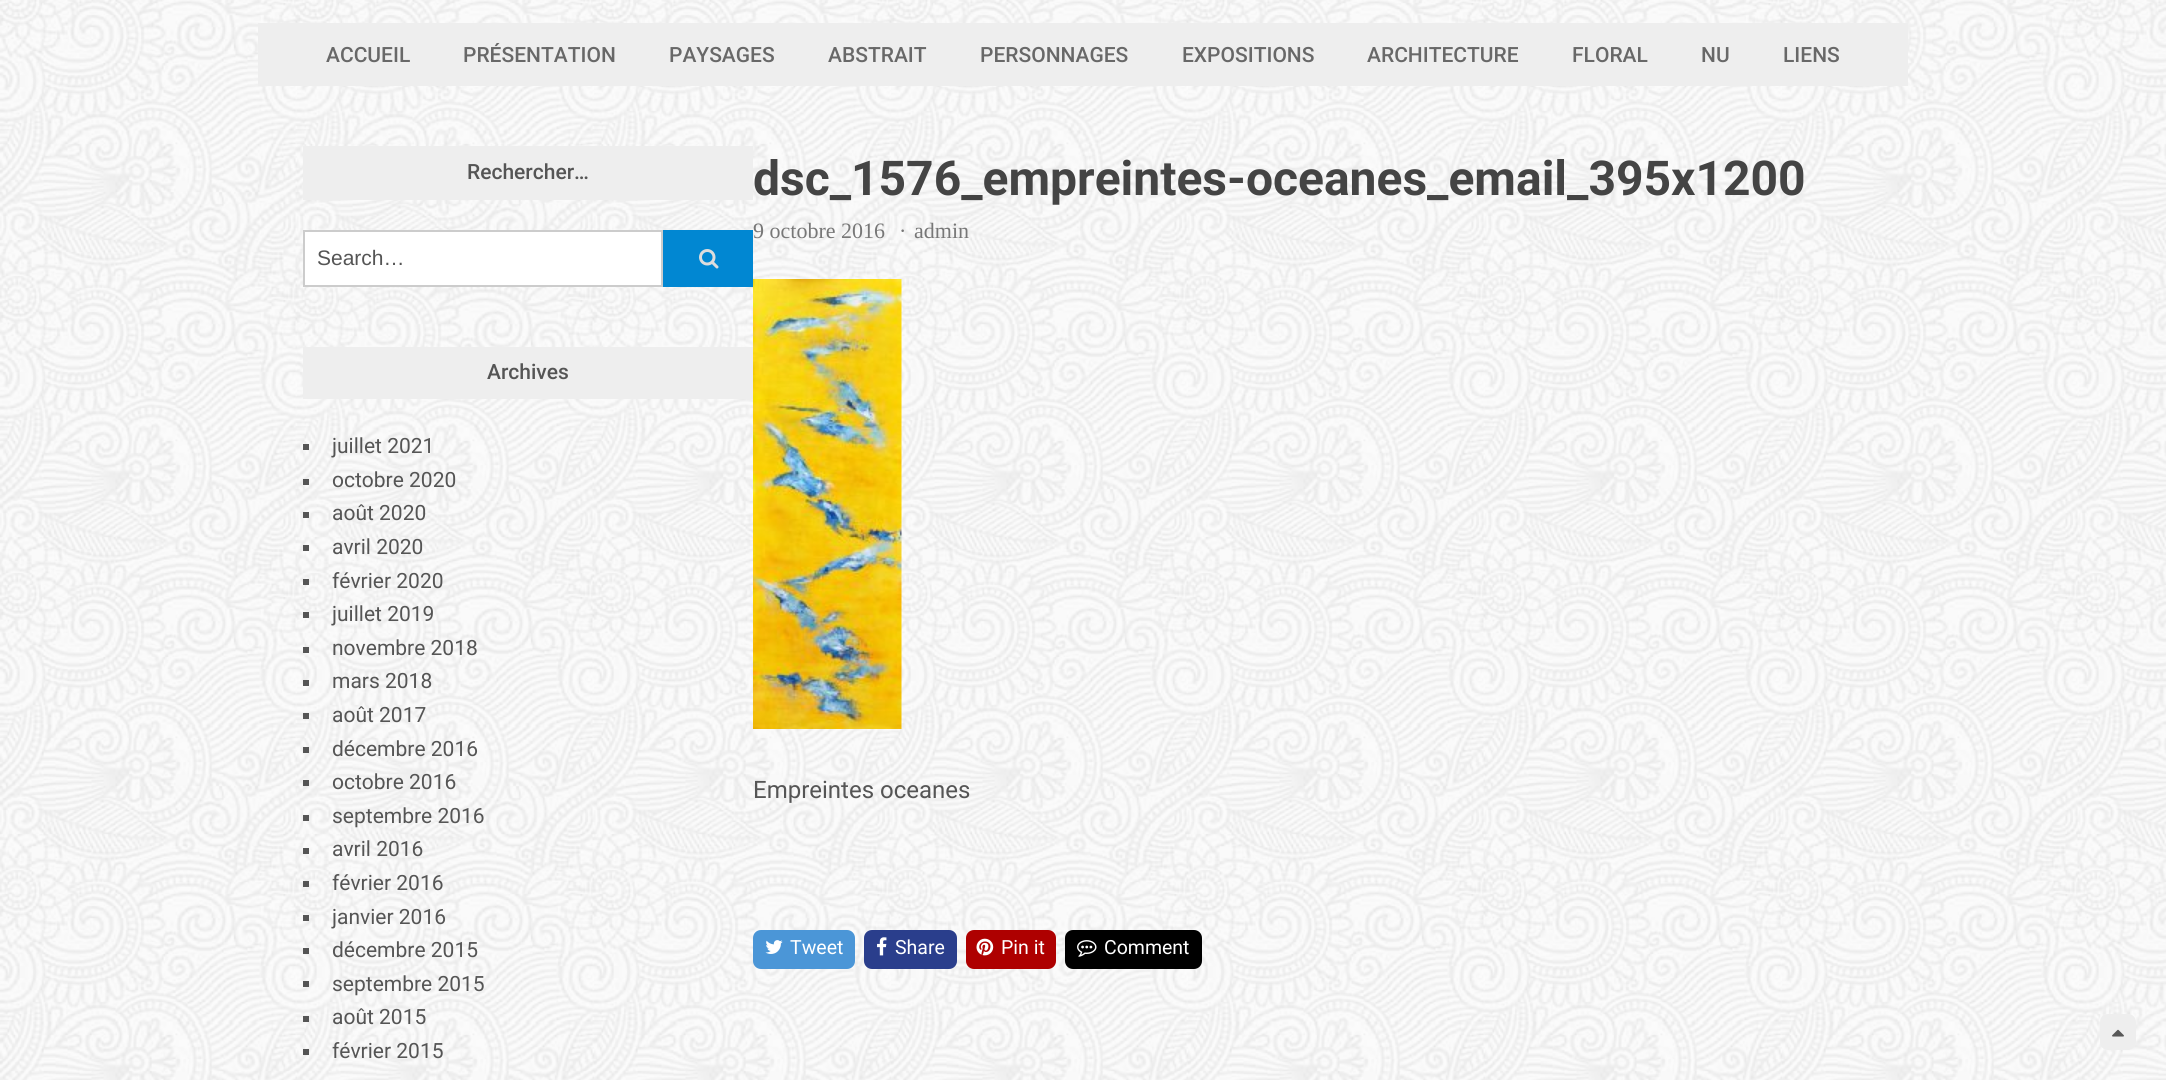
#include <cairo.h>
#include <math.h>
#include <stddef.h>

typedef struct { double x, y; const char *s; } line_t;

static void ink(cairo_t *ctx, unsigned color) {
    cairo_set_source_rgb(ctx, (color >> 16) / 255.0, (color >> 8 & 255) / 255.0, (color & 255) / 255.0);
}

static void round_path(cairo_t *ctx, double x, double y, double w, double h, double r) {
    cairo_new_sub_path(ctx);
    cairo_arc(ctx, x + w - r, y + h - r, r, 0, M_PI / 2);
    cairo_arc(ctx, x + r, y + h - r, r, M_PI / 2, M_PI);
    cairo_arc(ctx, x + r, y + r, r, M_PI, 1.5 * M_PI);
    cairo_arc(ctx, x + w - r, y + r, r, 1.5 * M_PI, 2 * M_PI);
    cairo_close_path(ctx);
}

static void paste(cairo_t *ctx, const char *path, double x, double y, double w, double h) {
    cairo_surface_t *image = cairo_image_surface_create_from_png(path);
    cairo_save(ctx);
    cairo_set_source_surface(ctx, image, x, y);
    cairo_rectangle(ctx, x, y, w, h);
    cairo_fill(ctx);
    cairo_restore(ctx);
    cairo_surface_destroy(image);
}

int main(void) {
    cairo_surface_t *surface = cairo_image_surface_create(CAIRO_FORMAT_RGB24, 2166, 1080);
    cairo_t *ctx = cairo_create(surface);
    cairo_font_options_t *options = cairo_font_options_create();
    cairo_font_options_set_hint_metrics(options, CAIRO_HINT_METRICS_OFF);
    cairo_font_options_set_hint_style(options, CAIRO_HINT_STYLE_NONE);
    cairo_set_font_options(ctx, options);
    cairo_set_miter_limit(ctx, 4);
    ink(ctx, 0xFFFFFF);
    cairo_paint(ctx);
    paste(ctx, "media/1.png", 0, 0, 2166, 1080);
    ink(ctx, 0xEEEEEE);
    cairo_rectangle(ctx, 258, 23, 1650, 63);
    cairo_fill(ctx);
    cairo_select_font_face(ctx, "Roboto Medium", CAIRO_FONT_SLANT_NORMAL, CAIRO_FONT_WEIGHT_NORMAL);
    cairo_set_font_size(ctx, 21);
    ink(ctx, 0x686868);
    {
        static const line_t items[] = {
            {326, 62, "ACCUEIL"},
            {463, 62, "PRÉSENTATION"},
            {669, 62, "PAYSAGES"},
            {828, 62, "ABSTRAIT"},
            {980, 62, "PERSONNAGES"},
            {1182, 62, "EXPOSITIONS"},
            {1367, 62, "ARCHITECTURE"},
            {1572, 62, "FLORAL"},
            {1701, 62, "NU"},
            {1783, 62, "LIENS"},
        };
        for (size_t i = 0; i < sizeof items / sizeof *items; i++) {
            cairo_move_to(ctx, items[i].x, items[i].y);
            cairo_show_text(ctx, items[i].s);
        }
    }
    ink(ctx, 0xEEEEEE);
    cairo_rectangle(ctx, 303, 146, 450, 54);
    cairo_fill(ctx);
    ink(ctx, 0x555555);
    cairo_move_to(ctx, 467, 179);
    cairo_show_text(ctx, "Rechercher…");
    ink(ctx, 0xFFFFFF);
    cairo_rectangle(ctx, 304, 231, 358, 55);
    cairo_fill_preserve(ctx);
    ink(ctx, 0xCCCCCC);
    cairo_stroke(ctx);
    cairo_select_font_face(ctx, "Liberation Sans", CAIRO_FONT_SLANT_NORMAL, CAIRO_FONT_WEIGHT_NORMAL);
    ink(ctx, 0x555555);
    cairo_move_to(ctx, 317, 265);
    cairo_show_text(ctx, "Search…");
    ink(ctx, 0x0187D2);
    cairo_rectangle(ctx, 663, 230, 90, 57);
    cairo_fill(ctx);
    paste(ctx, "media/2.png", 699, 249, 20, 20);
    ink(ctx, 0xEEEEEE);
    cairo_rectangle(ctx, 303, 347, 450, 52);
    cairo_fill(ctx);
    cairo_select_font_face(ctx, "Roboto Medium", CAIRO_FONT_SLANT_NORMAL, CAIRO_FONT_WEIGHT_NORMAL);
    ink(ctx, 0x555555);
    cairo_move_to(ctx, 487, 379);
    cairo_show_text(ctx, "Archives");
    cairo_rectangle(ctx, 303, 444, 6, 6);
    cairo_fill(ctx);
    cairo_select_font_face(ctx, "Roboto", CAIRO_FONT_SLANT_NORMAL, CAIRO_FONT_WEIGHT_NORMAL);
    cairo_move_to(ctx, 332, 453);
    cairo_show_text(ctx, "juillet 2021");
    cairo_rectangle(ctx, 303, 479, 6, 6);
    cairo_fill(ctx);
    cairo_move_to(ctx, 332, 487);
    cairo_show_text(ctx, "octobre 2020");
    cairo_rectangle(ctx, 303, 512, 6, 6);
    cairo_fill(ctx);
    cairo_move_to(ctx, 332, 520);
    cairo_show_text(ctx, "août 2020");
    cairo_rectangle(ctx, 303, 545, 6, 6);
    cairo_fill(ctx);
    cairo_move_to(ctx, 332, 554);
    cairo_show_text(ctx, "avril 2020");
    cairo_rectangle(ctx, 303, 579, 6, 6);
    cairo_fill(ctx);
    cairo_move_to(ctx, 332, 588);
    cairo_show_text(ctx, "février 2020");
    cairo_rectangle(ctx, 303, 612, 6, 6);
    cairo_fill(ctx);
    cairo_move_to(ctx, 332, 621);
    cairo_show_text(ctx, "juillet 2019");
    cairo_rectangle(ctx, 303, 647, 6, 6);
    cairo_fill(ctx);
    cairo_move_to(ctx, 332, 655);
    cairo_show_text(ctx, "novembre 2018");
    cairo_rectangle(ctx, 303, 680, 6, 6);
    cairo_fill(ctx);
    cairo_move_to(ctx, 332, 688);
    cairo_show_text(ctx, "mars 2018");
    cairo_rectangle(ctx, 303, 713, 6, 6);
    cairo_fill(ctx);
    cairo_move_to(ctx, 332, 722);
    cairo_show_text(ctx, "août 2017");
    cairo_rectangle(ctx, 303, 747, 6, 6);
    cairo_fill(ctx);
    cairo_move_to(ctx, 332, 756);
    cairo_show_text(ctx, "décembre 2016");
    cairo_rectangle(ctx, 303, 780, 6, 6);
    cairo_fill(ctx);
    cairo_move_to(ctx, 332, 789);
    cairo_show_text(ctx, "octobre 2016");
    cairo_rectangle(ctx, 303, 815, 6, 6);
    cairo_fill(ctx);
    cairo_move_to(ctx, 332, 823);
    cairo_show_text(ctx, "septembre 2016");
    cairo_rectangle(ctx, 303, 848, 6, 6);
    cairo_fill(ctx);
    cairo_move_to(ctx, 332, 856);
    cairo_show_text(ctx, "avril 2016");
    cairo_rectangle(ctx, 303, 881, 6, 6);
    cairo_fill(ctx);
    cairo_move_to(ctx, 332, 890);
    cairo_show_text(ctx, "février 2016");
    cairo_rectangle(ctx, 303, 915, 6, 6);
    cairo_fill(ctx);
    cairo_move_to(ctx, 332, 924);
    cairo_show_text(ctx, "janvier 2016");
    cairo_rectangle(ctx, 303, 948, 6, 6);
    cairo_fill(ctx);
    cairo_move_to(ctx, 332, 957);
    cairo_show_text(ctx, "décembre 2015");
    cairo_rectangle(ctx, 303, 981, 6, 6);
    cairo_fill(ctx);
    cairo_move_to(ctx, 332, 991);
    cairo_show_text(ctx, "septembre 2015");
    cairo_rectangle(ctx, 303, 1016, 6, 6);
    cairo_fill(ctx);
    cairo_move_to(ctx, 332, 1024);
    cairo_show_text(ctx, "août 2015");
    cairo_rectangle(ctx, 303, 1049, 6, 6);
    cairo_fill(ctx);
    cairo_move_to(ctx, 332, 1058);
    cairo_show_text(ctx, "février 2015");
    cairo_select_font_face(ctx, "Roboto", CAIRO_FONT_SLANT_NORMAL, CAIRO_FONT_WEIGHT_BOLD);
    cairo_set_font_size(ctx, 48);
    ink(ctx, 0x444444);
    cairo_move_to(ctx, 753, 195);
    cairo_show_text(ctx, "dsc_1576_empreintes-oceanes_email_395x1200");
    cairo_select_font_face(ctx, "Liberation Serif", CAIRO_FONT_SLANT_NORMAL, CAIRO_FONT_WEIGHT_NORMAL);
    cairo_set_font_size(ctx, 22);
    ink(ctx, 0x777777);
    {
        static const line_t items[] = {
            {753, 238, "9 octobre 2016"},
            {899, 238, "·"},
            {914, 238, "admin"},
        };
        for (size_t i = 0; i < sizeof items / sizeof *items; i++) {
            cairo_move_to(ctx, items[i].x, items[i].y);
            cairo_show_text(ctx, items[i].s);
        }
    }
    paste(ctx, "media/3.png", 753, 279, 149, 450);
    cairo_select_font_face(ctx, "Roboto", CAIRO_FONT_SLANT_NORMAL, CAIRO_FONT_WEIGHT_NORMAL);
    cairo_set_font_size(ctx, 24);
    ink(ctx, 0x555555);
    cairo_move_to(ctx, 753, 798);
    cairo_show_text(ctx, "Empreintes oceanes");
    ink(ctx, 0x4B96D7);
    round_path(ctx, 753, 930, 102, 39, 8);
    cairo_fill(ctx);
    paste(ctx, "media/4.png", 765, 940, 18, 14);
    cairo_set_font_size(ctx, 19.5);
    ink(ctx, 0xFFFFFF);
    cairo_move_to(ctx, 790, 954);
    cairo_show_text(ctx, "Tweet");
    ink(ctx, 0x2A3E8C);
    round_path(ctx, 864, 930, 93, 39, 8);
    cairo_fill(ctx);
    paste(ctx, "media/5.png", 877, 937, 10, 19);
    ink(ctx, 0xFFFFFF);
    cairo_move_to(ctx, 895, 954);
    cairo_show_text(ctx, "Share");
    ink(ctx, 0xAE0000);
    round_path(ctx, 966, 930, 90, 39, 8);
    cairo_fill(ctx);
    paste(ctx, "media/6.png", 976, 938, 18, 18);
    ink(ctx, 0xFFFFFF);
    cairo_move_to(ctx, 1001, 954);
    cairo_show_text(ctx, "Pin it");
    ink(ctx, 0x000000);
    round_path(ctx, 1065, 930, 137, 39, 8);
    cairo_fill(ctx);
    paste(ctx, "media/7.png", 1077, 940, 20, 17);
    ink(ctx, 0xFFFFFF);
    cairo_move_to(ctx, 1104, 954);
    cairo_show_text(ctx, "Comment");
    ink(ctx, 0xEEEEEE);
    round_path(ctx, 2100, 1014, 36, 36, 8);
    cairo_fill(ctx);
    paste(ctx, "media/8.png", 2112, 1029, 12, 8);
    cairo_surface_write_to_png(surface, "image.png");
    cairo_font_options_destroy(options);
    cairo_destroy(ctx);
    cairo_surface_destroy(surface);
    return 0;
}
